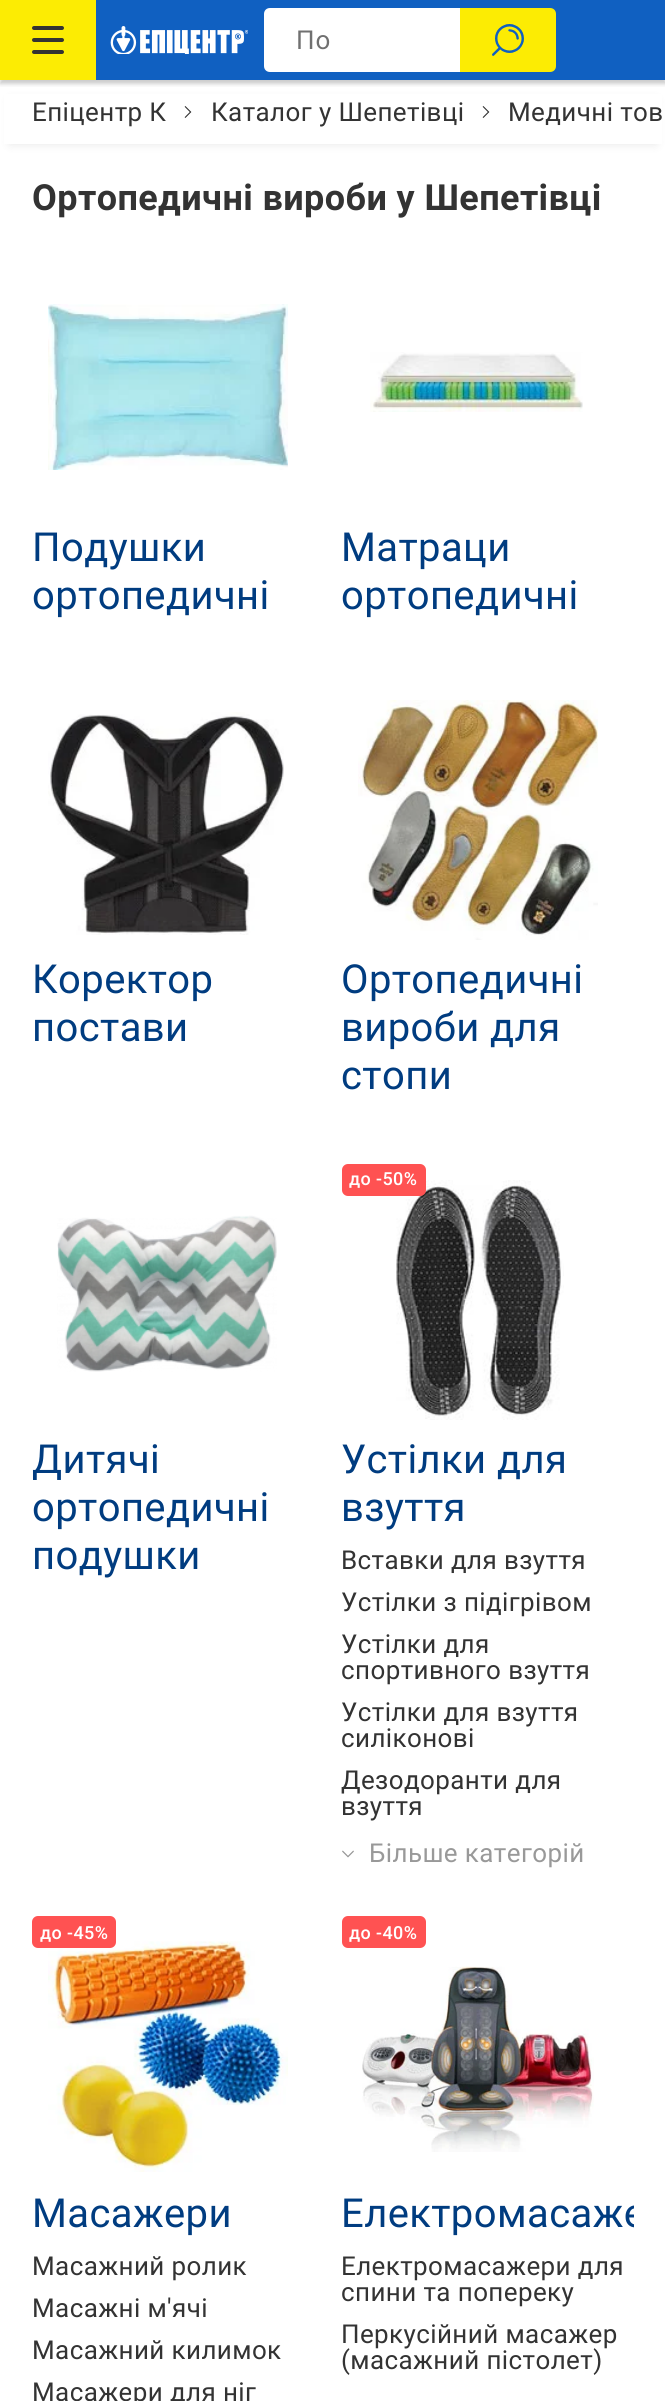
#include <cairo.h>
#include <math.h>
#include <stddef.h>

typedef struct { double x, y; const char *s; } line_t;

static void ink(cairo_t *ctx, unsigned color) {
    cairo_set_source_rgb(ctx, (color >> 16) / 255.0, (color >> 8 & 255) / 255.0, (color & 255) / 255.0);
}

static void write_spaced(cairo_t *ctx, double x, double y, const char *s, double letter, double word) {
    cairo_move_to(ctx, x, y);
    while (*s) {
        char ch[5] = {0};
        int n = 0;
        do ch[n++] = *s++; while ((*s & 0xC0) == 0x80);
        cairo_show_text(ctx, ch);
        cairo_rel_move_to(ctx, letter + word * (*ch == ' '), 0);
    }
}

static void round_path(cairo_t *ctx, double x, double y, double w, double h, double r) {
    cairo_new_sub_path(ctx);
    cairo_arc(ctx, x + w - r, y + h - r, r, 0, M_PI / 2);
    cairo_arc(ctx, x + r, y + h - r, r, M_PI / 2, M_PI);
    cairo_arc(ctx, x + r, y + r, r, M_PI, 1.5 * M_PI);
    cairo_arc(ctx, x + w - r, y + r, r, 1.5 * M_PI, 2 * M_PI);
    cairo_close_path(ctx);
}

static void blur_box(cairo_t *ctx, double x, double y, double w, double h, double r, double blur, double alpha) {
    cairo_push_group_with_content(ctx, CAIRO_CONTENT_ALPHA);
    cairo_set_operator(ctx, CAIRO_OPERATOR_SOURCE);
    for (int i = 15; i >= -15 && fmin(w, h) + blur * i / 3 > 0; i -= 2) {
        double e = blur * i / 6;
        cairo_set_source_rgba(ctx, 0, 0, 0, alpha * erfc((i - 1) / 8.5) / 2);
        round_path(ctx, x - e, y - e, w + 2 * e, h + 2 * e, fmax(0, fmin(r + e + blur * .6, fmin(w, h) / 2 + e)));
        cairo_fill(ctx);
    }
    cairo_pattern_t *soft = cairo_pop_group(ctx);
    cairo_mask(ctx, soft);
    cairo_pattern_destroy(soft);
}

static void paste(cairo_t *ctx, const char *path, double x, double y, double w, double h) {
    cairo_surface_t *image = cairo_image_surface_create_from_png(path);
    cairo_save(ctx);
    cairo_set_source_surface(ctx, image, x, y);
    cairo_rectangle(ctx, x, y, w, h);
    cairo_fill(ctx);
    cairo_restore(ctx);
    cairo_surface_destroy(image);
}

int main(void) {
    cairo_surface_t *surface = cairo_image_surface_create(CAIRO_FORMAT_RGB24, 665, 2401);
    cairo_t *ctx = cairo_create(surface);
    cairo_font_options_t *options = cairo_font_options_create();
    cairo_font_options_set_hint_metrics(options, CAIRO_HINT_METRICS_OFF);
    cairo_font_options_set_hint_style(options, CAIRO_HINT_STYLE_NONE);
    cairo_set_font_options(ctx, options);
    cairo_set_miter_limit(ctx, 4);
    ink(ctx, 0xFFFFFF);
    cairo_paint(ctx);
    ink(ctx, 0x1060C1);
    cairo_rectangle(ctx, 96, 0, 569, 80);
    cairo_fill(ctx);
    ink(ctx, 0xFCEC03);
    cairo_rectangle(ctx, 0, 0, 96, 80);
    cairo_fill(ctx);
    ink(ctx, 0x333333);
    round_path(ctx, 32, 38, 32, 4, 2);
    cairo_fill(ctx);
    round_path(ctx, 32, 26, 32, 4, 2);
    cairo_fill(ctx);
    round_path(ctx, 32, 50, 32, 4, 2);
    cairo_fill(ctx);
    paste(ctx, "media/1.png", 110, 26, 138, 28);
    ink(ctx, 0xFFFFFF);
    cairo_new_path(ctx);
    cairo_move_to(ctx, 270, 8);
    cairo_line_to(ctx, 460, 8);
    cairo_line_to(ctx, 460, 72);
    cairo_line_to(ctx, 270, 72);
    cairo_curve_to(ctx, 266.5, 72, 264, 69.5, 264, 66);
    cairo_line_to(ctx, 264, 14);
    cairo_curve_to(ctx, 264, 10.5, 266.5, 8, 270, 8);
    cairo_close_path(ctx);
    cairo_fill(ctx);
    ink(ctx, 0xFCEC03);
    cairo_new_path(ctx);
    cairo_move_to(ctx, 460, 8);
    cairo_line_to(ctx, 550, 8);
    cairo_curve_to(ctx, 553.5, 8, 556, 10.5, 556, 14);
    cairo_line_to(ctx, 556, 66);
    cairo_curve_to(ctx, 556, 69.5, 553.5, 72, 550, 72);
    cairo_line_to(ctx, 460, 72);
    cairo_close_path(ctx);
    cairo_fill(ctx);
    cairo_save(ctx);
    cairo_rectangle(ctx, 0, 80, 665, 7);
    cairo_clip(ctx);
    ink(ctx, 0x000000);
    blur_box(ctx, 0, 4, 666, 80, 0, 2, 0.2);
    cairo_restore(ctx);
    cairo_select_font_face(ctx, "Roboto", CAIRO_FONT_SLANT_NORMAL, CAIRO_FONT_WEIGHT_NORMAL);
    cairo_set_font_size(ctx, 26);
    ink(ctx, 0x707070);
    write_spaced(ctx, 296, 49, "По", 1, 0);
    paste(ctx, "media/2.png", 492, 24, 32, 32);
    ink(ctx, 0x000000);
    blur_box(ctx, 10, 100, 646, 44, 0, 5, 0.1);
    ink(ctx, 0xFFFFFF);
    cairo_rectangle(ctx, 4, 94, 658, 50);
    cairo_fill(ctx);
    ink(ctx, 0x333333);
    write_spaced(ctx, 32, 121, "Епіцентр К", 0.4, 0);
    paste(ctx, "media/3.png", 184, 106, 8, 12);
    write_spaced(ctx, 211, 121, "Каталог у Шепетівці", 0.4, 0);
    paste(ctx, "media/3.png", 482, 106, 8, 12);
    write_spaced(ctx, 508, 121, "Медичні тов", 0.4, 0);
    cairo_select_font_face(ctx, "Roboto", CAIRO_FONT_SLANT_NORMAL, CAIRO_FONT_WEIGHT_BOLD);
    cairo_set_font_size(ctx, 36);
    write_spaced(ctx, 32, 210, "Ортопедичні вироби у Шепетівці", 0.4, 0);
    paste(ctx, "media/4.png", 48, 304, 240, 166);
    cairo_select_font_face(ctx, "Roboto", CAIRO_FONT_SLANT_NORMAL, CAIRO_FONT_WEIGHT_NORMAL);
    cairo_set_font_size(ctx, 40);
    ink(ctx, 0x003C80);
    write_spaced(ctx, 32, 561, "Подушки", 0.4, 0);
    write_spaced(ctx, 32, 609, "ортопедичні", 0.4, 0);
    paste(ctx, "media/5.png", 370, 352, 213, 60);
    write_spaced(ctx, 341, 561, "Матраци", 0.4, 0);
    write_spaced(ctx, 341, 609, "ортопедичні", 0.4, 0);
    paste(ctx, "media/6.png", 48, 712, 236, 223);
    write_spaced(ctx, 32, 993, "Коректор", 0.4, 0);
    write_spaced(ctx, 32, 1041, "постави", 0.4, 0);
    paste(ctx, "media/7.png", 358, 700, 240, 240);
    {
        static const line_t items[] = {
            {341, 993, "Ортопедичні"},
            {341, 1041, "вироби для"},
            {341, 1089, "стопи"},
        };
        for (size_t i = 0; i < sizeof items / sizeof *items; i++) {
            write_spaced(ctx, items[i].x, items[i].y, items[i].s, 0.4, 0);
        }
    }
    paste(ctx, "media/8.png", 57, 1215, 220, 157);
    {
        static const line_t items[] = {
            {32, 1473, "Дитячі"},
            {32, 1521, "ортопедичні"},
            {32, 1569, "подушки"},
        };
        for (size_t i = 0; i < sizeof items / sizeof *items; i++) {
            write_spaced(ctx, items[i].x, items[i].y, items[i].s, 0.4, 0);
        }
    }
    paste(ctx, "media/9.png", 396, 1180, 168, 240);
    ink(ctx, 0xFF5252);
    round_path(ctx, 342, 1164, 84, 32, 6);
    cairo_fill(ctx);
    cairo_select_font_face(ctx, "Roboto Medium", CAIRO_FONT_SLANT_NORMAL, CAIRO_FONT_WEIGHT_NORMAL);
    cairo_set_font_size(ctx, 18);
    ink(ctx, 0xFFFFFF);
    write_spaced(ctx, 349, 1185, "до -50%", 0.4, 0);
    cairo_select_font_face(ctx, "Roboto", CAIRO_FONT_SLANT_NORMAL, CAIRO_FONT_WEIGHT_NORMAL);
    cairo_set_font_size(ctx, 40);
    ink(ctx, 0x003C80);
    write_spaced(ctx, 341, 1473, "Устілки для", 0.4, 0);
    write_spaced(ctx, 341, 1521, "взуття", 0.4, 0);
    cairo_set_font_size(ctx, 26);
    ink(ctx, 0x333333);
    {
        static const line_t items[] = {
            {341, 1569, "Вставки для взуття"},
            {341, 1611, "Устілки з підігрівом"},
            {341, 1653, "Устілки для"},
            {341, 1679, "спортивного взуття"},
            {341, 1721, "Устілки для взуття"},
            {341, 1747, "силіконові"},
            {341, 1789, "Дезодоранти для"},
            {341, 1815, "взуття"},
        };
        for (size_t i = 0; i < sizeof items / sizeof *items; i++) {
            write_spaced(ctx, items[i].x, items[i].y, items[i].s, 0.4, 0);
        }
    }
    paste(ctx, "media/10.png", 342, 1850, 12, 8);
    ink(ctx, 0x999999);
    write_spaced(ctx, 369, 1862, "Більше категорій", 0.4, 0);
    paste(ctx, "media/11.png", 48, 1941, 240, 231);
    ink(ctx, 0xFF5252);
    round_path(ctx, 32, 1916, 84, 32, 6);
    cairo_fill(ctx);
    cairo_select_font_face(ctx, "Roboto Medium", CAIRO_FONT_SLANT_NORMAL, CAIRO_FONT_WEIGHT_NORMAL);
    cairo_set_font_size(ctx, 18);
    ink(ctx, 0xFFFFFF);
    write_spaced(ctx, 40, 1939, "до -45%", 0.4, 0);
    cairo_select_font_face(ctx, "Roboto", CAIRO_FONT_SLANT_NORMAL, CAIRO_FONT_WEIGHT_NORMAL);
    cairo_set_font_size(ctx, 40);
    ink(ctx, 0x003C80);
    write_spaced(ctx, 32, 2227, "Масажери", 0.4, 0);
    cairo_set_font_size(ctx, 26);
    ink(ctx, 0x333333);
    {
        static const line_t items[] = {
            {32, 2275, "Масажний ролик"},
            {32, 2317, "Масажні м'ячі"},
            {32, 2359, "Масажний килимок"},
            {32, 2401, "Масажери для ніг"},
        };
        for (size_t i = 0; i < sizeof items / sizeof *items; i++) {
            write_spaced(ctx, items[i].x, items[i].y, items[i].s, 0.4, 0);
        }
    }
    ink(ctx, 0xFF5252);
    round_path(ctx, 342, 1916, 84, 32, 6);
    cairo_fill(ctx);
    cairo_select_font_face(ctx, "Roboto Medium", CAIRO_FONT_SLANT_NORMAL, CAIRO_FONT_WEIGHT_NORMAL);
    cairo_set_font_size(ctx, 18);
    ink(ctx, 0xFFFFFF);
    write_spaced(ctx, 349, 1939, "до -40%", 0.4, 0);
    paste(ctx, "media/12.png", 362, 1966, 232, 186);
    cairo_save(ctx);
    cairo_rectangle(ctx, 342, 2188, 292, 48);
    cairo_clip(ctx);
    cairo_select_font_face(ctx, "Roboto", CAIRO_FONT_SLANT_NORMAL, CAIRO_FONT_WEIGHT_NORMAL);
    cairo_set_font_size(ctx, 40);
    ink(ctx, 0x003C80);
    write_spaced(ctx, 341, 2227, "Електромасаже", 0.4, 0);
    cairo_restore(ctx);
    cairo_select_font_face(ctx, "Roboto", CAIRO_FONT_SLANT_NORMAL, CAIRO_FONT_WEIGHT_NORMAL);
    cairo_set_font_size(ctx, 26);
    ink(ctx, 0x333333);
    {
        static const line_t items[] = {
            {341, 2275, "Електромасажери для"},
            {341, 2301, "спини та попереку"},
            {341, 2343, "Перкусійний масажер"},
            {341, 2369, "(масажний пістолет)"},
        };
        for (size_t i = 0; i < sizeof items / sizeof *items; i++) {
            write_spaced(ctx, items[i].x, items[i].y, items[i].s, 0.4, 0);
        }
    }
    cairo_surface_write_to_png(surface, "image.png");
    cairo_font_options_destroy(options);
    cairo_destroy(ctx);
    cairo_surface_destroy(surface);
    return 0;
}
